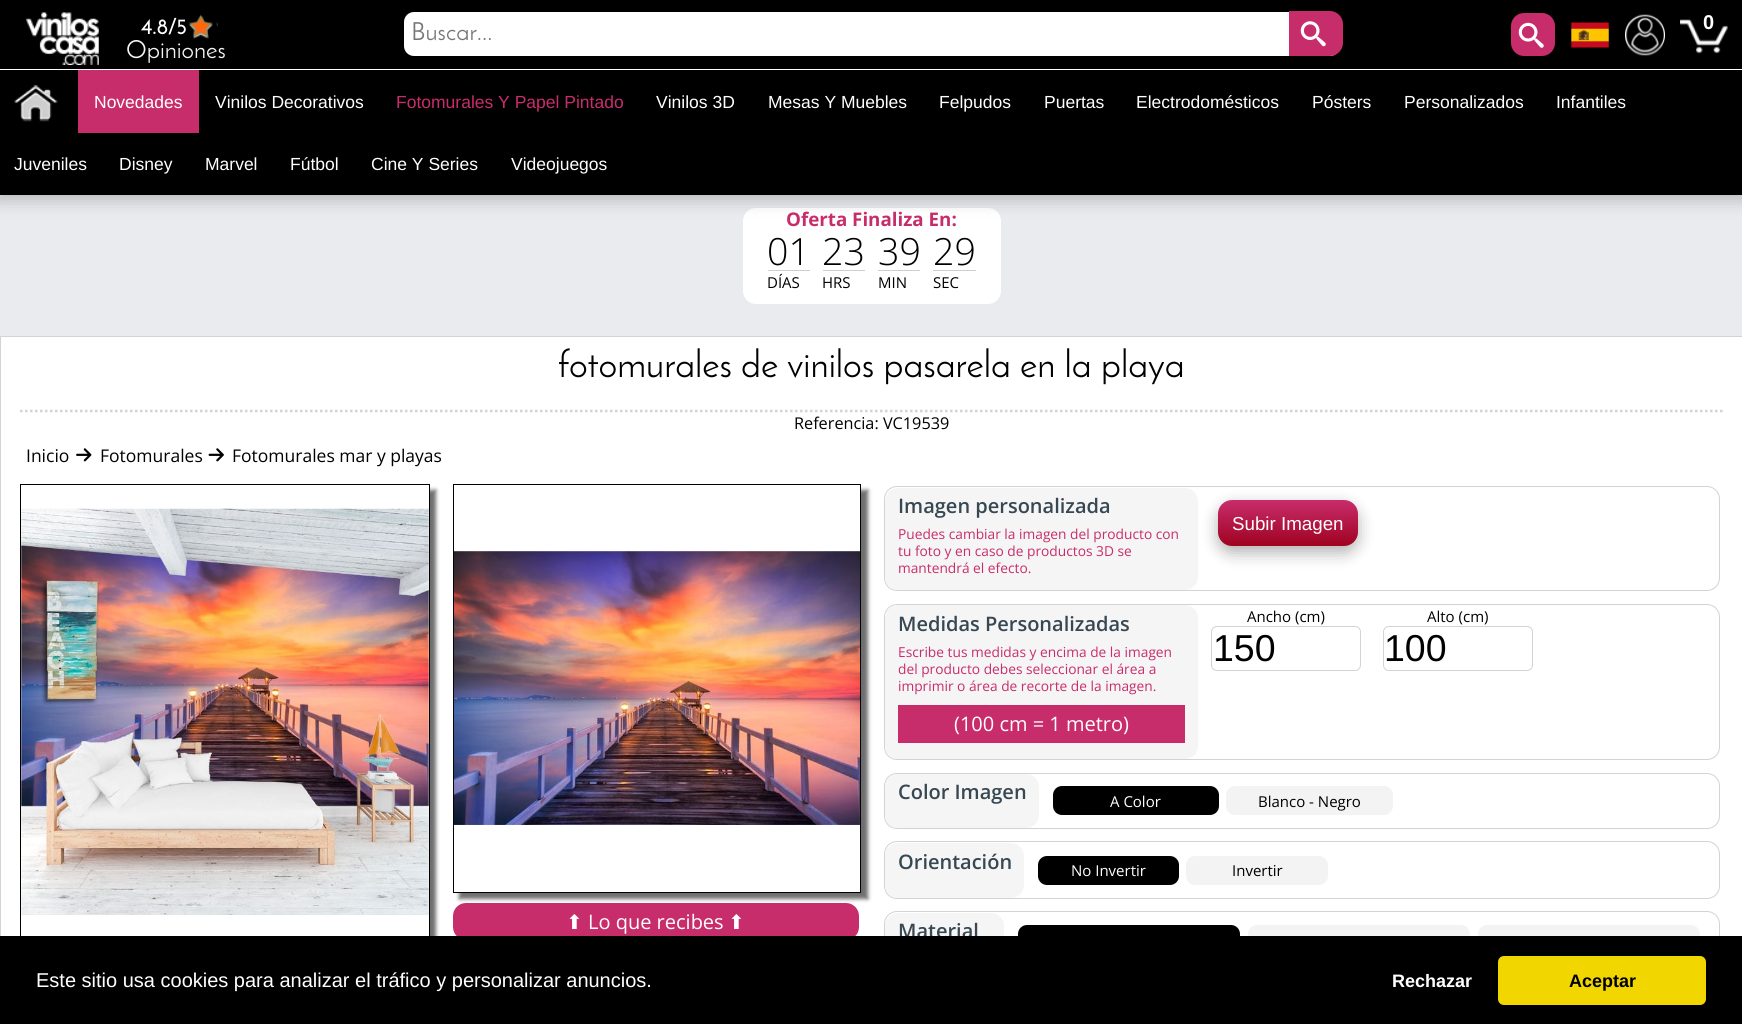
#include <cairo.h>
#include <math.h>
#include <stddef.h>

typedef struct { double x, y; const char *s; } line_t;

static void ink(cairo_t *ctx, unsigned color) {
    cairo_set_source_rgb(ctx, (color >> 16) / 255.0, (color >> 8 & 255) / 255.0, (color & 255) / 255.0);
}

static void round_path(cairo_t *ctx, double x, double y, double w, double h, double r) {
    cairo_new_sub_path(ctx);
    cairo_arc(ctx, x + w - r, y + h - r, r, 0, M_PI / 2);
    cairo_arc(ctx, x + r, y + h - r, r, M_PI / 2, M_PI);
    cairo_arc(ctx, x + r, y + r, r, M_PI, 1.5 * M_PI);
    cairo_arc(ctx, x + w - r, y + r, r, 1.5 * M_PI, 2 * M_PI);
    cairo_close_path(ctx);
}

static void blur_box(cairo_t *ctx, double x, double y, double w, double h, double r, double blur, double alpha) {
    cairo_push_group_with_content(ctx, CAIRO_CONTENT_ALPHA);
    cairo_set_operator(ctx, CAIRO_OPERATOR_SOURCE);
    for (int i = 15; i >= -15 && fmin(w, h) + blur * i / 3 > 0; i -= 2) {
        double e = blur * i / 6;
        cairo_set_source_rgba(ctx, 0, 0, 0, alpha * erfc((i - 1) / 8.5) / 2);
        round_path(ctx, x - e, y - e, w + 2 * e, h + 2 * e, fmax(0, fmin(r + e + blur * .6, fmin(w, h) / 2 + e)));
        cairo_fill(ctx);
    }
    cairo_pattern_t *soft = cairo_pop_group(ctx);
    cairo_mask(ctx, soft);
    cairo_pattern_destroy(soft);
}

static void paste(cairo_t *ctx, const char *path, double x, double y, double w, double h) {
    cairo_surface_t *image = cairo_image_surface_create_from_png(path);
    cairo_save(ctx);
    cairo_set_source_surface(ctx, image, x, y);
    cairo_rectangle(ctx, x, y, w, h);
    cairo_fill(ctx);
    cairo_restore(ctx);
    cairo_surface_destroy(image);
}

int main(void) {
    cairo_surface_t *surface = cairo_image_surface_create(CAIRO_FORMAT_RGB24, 1742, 1024);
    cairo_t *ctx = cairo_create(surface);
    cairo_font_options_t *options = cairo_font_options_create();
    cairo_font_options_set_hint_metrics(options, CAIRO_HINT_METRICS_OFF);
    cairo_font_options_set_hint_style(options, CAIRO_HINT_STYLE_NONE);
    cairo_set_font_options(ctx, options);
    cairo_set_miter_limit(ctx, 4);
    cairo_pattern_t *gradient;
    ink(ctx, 0xE9EBEF);
    cairo_paint(ctx);
    ink(ctx, 0x000000);
    cairo_rectangle(ctx, 0, 0, 1742, 69);
    cairo_fill(ctx);
    paste(ctx, "media/1.png", 26, 12, 73, 53);
    cairo_select_font_face(ctx, "Josefin Sans", CAIRO_FONT_SLANT_NORMAL, CAIRO_FONT_WEIGHT_BOLD);
    cairo_set_font_size(ctx, 21);
    ink(ctx, 0xFFFFFF);
    cairo_move_to(ctx, 141, 34);
    cairo_show_text(ctx, "4.8/5");
    paste(ctx, "media/2.png", 188, 16, 30, 23);
    paste(ctx, "media/3.png", 188, 14, 30, 24);
    cairo_select_font_face(ctx, "Josefin Sans", CAIRO_FONT_SLANT_NORMAL, CAIRO_FONT_WEIGHT_NORMAL);
    cairo_set_font_size(ctx, 25);
    ink(ctx, 0xF5F5F5);
    cairo_move_to(ctx, 126, 58);
    cairo_show_text(ctx, "Opiniones");
    ink(ctx, 0xFFFFFF);
    round_path(ctx, 402.5, 10.5, 939, 47, 11.5);
    cairo_fill_preserve(ctx);
    ink(ctx, 0x000000);
    cairo_set_line_width(ctx, 3);
    cairo_stroke(ctx);
    ink(ctx, 0x757575);
    cairo_move_to(ctx, 411, 40);
    cairo_show_text(ctx, "Buscar...");
    ink(ctx, 0xC82D6B);
    cairo_new_path(ctx);
    cairo_move_to(ctx, 1289, 11);
    cairo_line_to(ctx, 1330, 11);
    cairo_curve_to(ctx, 1337, 11, 1343, 17, 1343, 24);
    cairo_line_to(ctx, 1343, 43);
    cairo_curve_to(ctx, 1343, 50, 1337, 56, 1330, 56);
    cairo_line_to(ctx, 1289, 56);
    cairo_close_path(ctx);
    cairo_fill(ctx);
    paste(ctx, "media/4.png", 1300, 21, 26, 26);
    ink(ctx, 0xFFFFFF);
    round_path(ctx, 743, 208, 258, 96, 13);
    cairo_fill(ctx);
    ink(ctx, 0x000000);
    blur_box(ctx, -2, 75, 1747, 126, 0, 8, 0.2);
    ink(ctx, 0xC82D6B);
    round_path(ctx, 1511, 13, 44, 43, 13);
    cairo_fill(ctx);
    paste(ctx, "media/5.png", 1518, 22, 26, 26);
    paste(ctx, "media/6.png", 1571, 22, 38, 26);
    paste(ctx, "media/7.png", 1625, 14, 40, 42);
    cairo_select_font_face(ctx, "Liberation Sans", CAIRO_FONT_SLANT_NORMAL, CAIRO_FONT_WEIGHT_BOLD);
    cairo_set_font_size(ctx, 20);
    ink(ctx, 0xFFFFFF);
    cairo_move_to(ctx, 1703, 29);
    cairo_show_text(ctx, "0");
    paste(ctx, "media/8.png", 1680, 19, 48, 35);
    cairo_rectangle(ctx, 0, 69, 1742, 1);
    cairo_fill(ctx);
    ink(ctx, 0x000000);
    cairo_rectangle(ctx, 0, 70, 1742, 125);
    cairo_fill(ctx);
    paste(ctx, "media/9.png", 13, 84, 45, 38);
    ink(ctx, 0xC82D6B);
    cairo_rectangle(ctx, 78, 70, 121, 63);
    cairo_fill(ctx);
    cairo_select_font_face(ctx, "Liberation Sans", CAIRO_FONT_SLANT_NORMAL, CAIRO_FONT_WEIGHT_NORMAL);
    cairo_set_font_size(ctx, 17.5);
    ink(ctx, 0xFFFFFF);
    cairo_move_to(ctx, 94, 108);
    cairo_show_text(ctx, "Novedades");
    cairo_move_to(ctx, 215, 108);
    cairo_show_text(ctx, "Vinilos Decorativos");
    ink(ctx, 0xC82D6B);
    cairo_move_to(ctx, 396, 108);
    cairo_show_text(ctx, "Fotomurales Y Papel Pintado");
    ink(ctx, 0xFFFFFF);
    {
        static const line_t items[] = {
            {656, 108, "Vinilos 3D"},
            {768, 108, "Mesas Y Muebles"},
            {939, 108, "Felpudos"},
            {1044, 108, "Puertas"},
            {1136, 108, "Electrodomésticos"},
            {1312, 108, "Pósters"},
            {1404, 108, "Personalizados"},
            {1556, 108, "Infantiles"},
            {14, 170, "Juveniles"},
            {119, 170, "Disney"},
            {205, 170, "Marvel"},
            {290, 170, "Fútbol"},
            {371, 170, "Cine Y Series"},
            {511, 170, "Videojuegos"},
        };
        for (size_t i = 0; i < sizeof items / sizeof *items; i++) {
            cairo_move_to(ctx, items[i].x, items[i].y);
            cairo_show_text(ctx, items[i].s);
        }
    }
    cairo_select_font_face(ctx, "Open Sans", CAIRO_FONT_SLANT_NORMAL, CAIRO_FONT_WEIGHT_BOLD);
    cairo_set_font_size(ctx, 18.75);
    ink(ctx, 0xC82D6B);
    cairo_move_to(ctx, 786, 226);
    cairo_show_text(ctx, "Oferta Finaliza En:");
    cairo_select_font_face(ctx, "Open Sans Light", CAIRO_FONT_SLANT_NORMAL, CAIRO_FONT_WEIGHT_NORMAL);
    cairo_set_font_size(ctx, 37.5);
    ink(ctx, 0x000000);
    cairo_move_to(ctx, 767, 265);
    cairo_show_text(ctx, "01");
    ink(ctx, 0xCECECE);
    cairo_rectangle(ctx, 768, 270, 42, 1);
    cairo_fill(ctx);
    cairo_select_font_face(ctx, "Open Sans", CAIRO_FONT_SLANT_NORMAL, CAIRO_FONT_WEIGHT_NORMAL);
    cairo_set_font_size(ctx, 15);
    ink(ctx, 0x000000);
    cairo_move_to(ctx, 767, 288);
    cairo_show_text(ctx, "DÍAS");
    cairo_select_font_face(ctx, "Open Sans Light", CAIRO_FONT_SLANT_NORMAL, CAIRO_FONT_WEIGHT_NORMAL);
    cairo_set_font_size(ctx, 37.5);
    cairo_move_to(ctx, 822, 265);
    cairo_show_text(ctx, "23");
    ink(ctx, 0xCECECE);
    cairo_rectangle(ctx, 823, 270, 42, 1);
    cairo_fill(ctx);
    cairo_select_font_face(ctx, "Open Sans", CAIRO_FONT_SLANT_NORMAL, CAIRO_FONT_WEIGHT_NORMAL);
    cairo_set_font_size(ctx, 15);
    ink(ctx, 0x000000);
    cairo_move_to(ctx, 822, 288);
    cairo_show_text(ctx, "HRS");
    cairo_select_font_face(ctx, "Open Sans Light", CAIRO_FONT_SLANT_NORMAL, CAIRO_FONT_WEIGHT_NORMAL);
    cairo_set_font_size(ctx, 37.5);
    cairo_move_to(ctx, 878, 265);
    cairo_show_text(ctx, "39");
    ink(ctx, 0xCECECE);
    cairo_rectangle(ctx, 878, 270, 42, 1);
    cairo_fill(ctx);
    cairo_select_font_face(ctx, "Open Sans", CAIRO_FONT_SLANT_NORMAL, CAIRO_FONT_WEIGHT_NORMAL);
    cairo_set_font_size(ctx, 15);
    ink(ctx, 0x000000);
    cairo_move_to(ctx, 878, 288);
    cairo_show_text(ctx, "MIN");
    cairo_select_font_face(ctx, "Open Sans Light", CAIRO_FONT_SLANT_NORMAL, CAIRO_FONT_WEIGHT_NORMAL);
    cairo_set_font_size(ctx, 37.5);
    cairo_move_to(ctx, 933, 265);
    cairo_show_text(ctx, "29");
    ink(ctx, 0xCECECE);
    cairo_rectangle(ctx, 933, 270, 43, 1);
    cairo_fill(ctx);
    cairo_select_font_face(ctx, "Open Sans", CAIRO_FONT_SLANT_NORMAL, CAIRO_FONT_WEIGHT_NORMAL);
    cairo_set_font_size(ctx, 15);
    ink(ctx, 0x000000);
    cairo_move_to(ctx, 933, 288);
    cairo_show_text(ctx, "SEC");
    ink(ctx, 0xFFFFFF);
    cairo_rectangle(ctx, 1, 337, 1741, 599);
    cairo_fill(ctx);
    cairo_rectangle(ctx, 0.5, 336.5, 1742, 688);
    ink(ctx, 0xD3D3D3);
    cairo_set_line_width(ctx, 1);
    cairo_stroke(ctx);
    cairo_new_path(ctx);
    cairo_move_to(ctx, 20, 411);
    cairo_line_to(ctx, 1722.5, 411);
    cairo_set_line_width(ctx, 2.5);
    cairo_set_dash(ctx, (double[]){2.5, 2.5}, 2, 0);
    cairo_stroke(ctx);
    cairo_select_font_face(ctx, "Josefin Sans", CAIRO_FONT_SLANT_NORMAL, CAIRO_FONT_WEIGHT_NORMAL);
    cairo_set_font_size(ctx, 37.5);
    ink(ctx, 0x000000);
    cairo_move_to(ctx, 558, 377);
    cairo_show_text(ctx, "fotomurales de vinilos pasarela en la playa");
    cairo_select_font_face(ctx, "Open Sans", CAIRO_FONT_SLANT_NORMAL, CAIRO_FONT_WEIGHT_NORMAL);
    cairo_set_font_size(ctx, 16.25);
    cairo_move_to(ctx, 794, 429);
    cairo_show_text(ctx, "Referencia: VC19539");
    cairo_set_font_size(ctx, 17.5);
    cairo_move_to(ctx, 26, 462);
    cairo_show_text(ctx, "Inicio");
    paste(ctx, "media/10.png", 76, 448, 16, 14);
    cairo_move_to(ctx, 100, 462);
    cairo_show_text(ctx, "Fotomurales");
    paste(ctx, "media/11.png", 208, 448, 16, 14);
    cairo_move_to(ctx, 232, 462);
    cairo_show_text(ctx, "Fotomurales mar y playas");
    cairo_save(ctx);
    cairo_rectangle(ctx, 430, 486, 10, 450);
    cairo_clip(ctx);
    ink(ctx, 0x6E6E6E);
    blur_box(ctx, 26, 490, 410, 456, 0, 2, 1);
    cairo_restore(ctx);
    cairo_rectangle(ctx, 20.5, 484.5, 409, 455);
    cairo_set_line_width(ctx, 1);
    cairo_set_dash(ctx, NULL, 0, 0);
    cairo_stroke(ctx);
    paste(ctx, "media/12.png", 21, 508, 408, 407);
    ink(ctx, 0xC82D6B);
    round_path(ctx, 453, 903, 406, 37, 13);
    cairo_fill(ctx);
    cairo_save(ctx);
    cairo_set_fill_rule(ctx, CAIRO_FILL_RULE_EVEN_ODD);
    cairo_new_path(ctx);
    cairo_move_to(ctx, 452, 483);
    cairo_line_to(ctx, 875, 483);
    cairo_line_to(ctx, 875, 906);
    cairo_line_to(ctx, 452, 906);
    cairo_close_path(ctx);
    cairo_move_to(ctx, 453, 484);
    cairo_line_to(ctx, 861, 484);
    cairo_line_to(ctx, 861, 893);
    cairo_line_to(ctx, 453, 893);
    cairo_close_path(ctx);
    cairo_clip(ctx);
    ink(ctx, 0x6E6E6E);
    blur_box(ctx, 459, 490, 409, 409, 0, 2, 1);
    cairo_restore(ctx);
    cairo_rectangle(ctx, 453.5, 484.5, 407, 408);
    ink(ctx, 0x000000);
    cairo_stroke(ctx);
    paste(ctx, "media/13.png", 453, 551, 407, 274);
    cairo_select_font_face(ctx, "DejaVu Sans", CAIRO_FONT_SLANT_NORMAL, CAIRO_FONT_WEIGHT_NORMAL);
    cairo_set_font_size(ctx, 20);
    ink(ctx, 0xFFFFFF);
    cairo_move_to(ctx, 566, 929);
    cairo_show_text(ctx, "⬆");
    cairo_select_font_face(ctx, "Open Sans", CAIRO_FONT_SLANT_NORMAL, CAIRO_FONT_WEIGHT_NORMAL);
    cairo_move_to(ctx, 588, 929);
    cairo_show_text(ctx, "Lo que recibes");
    cairo_select_font_face(ctx, "DejaVu Sans", CAIRO_FONT_SLANT_NORMAL, CAIRO_FONT_WEIGHT_NORMAL);
    cairo_move_to(ctx, 728, 929);
    cairo_show_text(ctx, "⬆");
    round_path(ctx, 884.5, 486.5, 835, 104, 12.5);
    ink(ctx, 0xD3D3D3);
    cairo_stroke(ctx);
    ink(ctx, 0xF5F5F5);
    round_path(ctx, 885, 488, 313, 102, 13);
    cairo_fill(ctx);
    cairo_select_font_face(ctx, "Open Sans SemiBold", CAIRO_FONT_SLANT_NORMAL, CAIRO_FONT_WEIGHT_NORMAL);
    ink(ctx, 0x374853);
    cairo_move_to(ctx, 898, 513);
    cairo_show_text(ctx, "Imagen personalizada");
    cairo_select_font_face(ctx, "Open Sans", CAIRO_FONT_SLANT_NORMAL, CAIRO_FONT_WEIGHT_NORMAL);
    cairo_set_font_size(ctx, 13.75);
    ink(ctx, 0xC82D6B);
    {
        static const line_t items[] = {
            {898, 539, "Puedes cambiar la imagen del producto con"},
            {898, 556, "tu foto y en caso de productos 3D se"},
            {898, 573, "mantendrá el efecto."},
        };
        for (size_t i = 0; i < sizeof items / sizeof *items; i++) {
            cairo_move_to(ctx, items[i].x, items[i].y);
            cairo_show_text(ctx, items[i].s);
        }
    }
    ink(ctx, 0x000000);
    blur_box(ctx, 1218, 506, 140, 47, 14, 8, 0.3);
    gradient = cairo_pattern_create_linear(1288, 500, 1288, 546);
    cairo_pattern_add_color_stop_rgba(gradient, 0, 0.784, 0.176, 0.42, 1);
    cairo_pattern_add_color_stop_rgba(gradient, 1, 0.627, 0.008, 0.125, 1);
    cairo_set_source(ctx, gradient);
    cairo_pattern_destroy(gradient);
    round_path(ctx, 1218, 500, 140, 46, 14);
    cairo_fill(ctx);
    cairo_select_font_face(ctx, "Liberation Sans", CAIRO_FONT_SLANT_NORMAL, CAIRO_FONT_WEIGHT_NORMAL);
    cairo_set_font_size(ctx, 18.75);
    ink(ctx, 0xFFFFFF);
    cairo_move_to(ctx, 1232, 530);
    cairo_show_text(ctx, "Subir Imagen");
    round_path(ctx, 884.5, 604.5, 835, 155, 12.5);
    ink(ctx, 0xD3D3D3);
    cairo_stroke(ctx);
    ink(ctx, 0xF5F5F5);
    round_path(ctx, 885, 605, 313, 154, 13);
    cairo_fill(ctx);
    cairo_select_font_face(ctx, "Open Sans SemiBold", CAIRO_FONT_SLANT_NORMAL, CAIRO_FONT_WEIGHT_NORMAL);
    cairo_set_font_size(ctx, 20);
    ink(ctx, 0x374853);
    cairo_move_to(ctx, 898, 631);
    cairo_show_text(ctx, "Medidas Personalizadas");
    cairo_select_font_face(ctx, "Open Sans", CAIRO_FONT_SLANT_NORMAL, CAIRO_FONT_WEIGHT_NORMAL);
    cairo_set_font_size(ctx, 13.75);
    ink(ctx, 0xC82D6B);
    {
        static const line_t items[] = {
            {898, 657, "Escribe tus medidas y encima de la imagen"},
            {898, 674, "del producto debes seleccionar el área a"},
            {898, 691, "imprimir o área de recorte de la imagen."},
        };
        for (size_t i = 0; i < sizeof items / sizeof *items; i++) {
            cairo_move_to(ctx, items[i].x, items[i].y);
            cairo_show_text(ctx, items[i].s);
        }
    }
    cairo_rectangle(ctx, 898, 705, 287, 38);
    cairo_fill(ctx);
    cairo_set_font_size(ctx, 20);
    ink(ctx, 0xFFFFFF);
    cairo_move_to(ctx, 954, 731);
    cairo_show_text(ctx, "(100 cm = 1 metro)");
    cairo_set_font_size(ctx, 15);
    ink(ctx, 0x000000);
    cairo_move_to(ctx, 1247, 622);
    cairo_show_text(ctx, "Ancho (cm)");
    round_path(ctx, 1211.5, 626.5, 149, 44, 5.5);
    ink(ctx, 0xD3D3D3);
    cairo_stroke(ctx);
    cairo_select_font_face(ctx, "Liberation Sans", CAIRO_FONT_SLANT_NORMAL, CAIRO_FONT_WEIGHT_NORMAL);
    cairo_set_font_size(ctx, 37.5);
    ink(ctx, 0x000000);
    cairo_move_to(ctx, 1213, 661);
    cairo_show_text(ctx, "150");
    cairo_select_font_face(ctx, "Open Sans", CAIRO_FONT_SLANT_NORMAL, CAIRO_FONT_WEIGHT_NORMAL);
    cairo_set_font_size(ctx, 15);
    cairo_move_to(ctx, 1427, 622);
    cairo_show_text(ctx, "Alto (cm)");
    round_path(ctx, 1383.5, 626.5, 149, 44, 5.5);
    ink(ctx, 0xD3D3D3);
    cairo_stroke(ctx);
    cairo_select_font_face(ctx, "Liberation Sans", CAIRO_FONT_SLANT_NORMAL, CAIRO_FONT_WEIGHT_NORMAL);
    cairo_set_font_size(ctx, 37.5);
    ink(ctx, 0x000000);
    cairo_move_to(ctx, 1384, 661);
    cairo_show_text(ctx, "100");
    round_path(ctx, 884.5, 773.5, 835, 55, 12.5);
    ink(ctx, 0xD3D3D3);
    cairo_stroke(ctx);
    ink(ctx, 0xF5F5F5);
    round_path(ctx, 885, 774, 154, 54, 13);
    cairo_fill(ctx);
    cairo_select_font_face(ctx, "Open Sans SemiBold", CAIRO_FONT_SLANT_NORMAL, CAIRO_FONT_WEIGHT_NORMAL);
    cairo_set_font_size(ctx, 20);
    ink(ctx, 0x374853);
    cairo_move_to(ctx, 898, 799);
    cairo_show_text(ctx, "Color Imagen");
    ink(ctx, 0x000000);
    round_path(ctx, 1053, 786, 166, 29, 9);
    cairo_fill(ctx);
    cairo_select_font_face(ctx, "Open Sans", CAIRO_FONT_SLANT_NORMAL, CAIRO_FONT_WEIGHT_NORMAL);
    cairo_set_font_size(ctx, 15);
    ink(ctx, 0xFFFFFF);
    cairo_move_to(ctx, 1110, 807);
    cairo_show_text(ctx, "A Color");
    ink(ctx, 0xF3F3F3);
    round_path(ctx, 1226, 786, 167, 29, 9);
    cairo_fill(ctx);
    ink(ctx, 0x000000);
    cairo_move_to(ctx, 1258, 807);
    cairo_show_text(ctx, "Blanco - Negro");
    round_path(ctx, 884.5, 841.5, 835, 57, 12.5);
    ink(ctx, 0xD3D3D3);
    cairo_stroke(ctx);
    ink(ctx, 0xF5F5F5);
    round_path(ctx, 885, 843, 139, 55, 13);
    cairo_fill(ctx);
    cairo_select_font_face(ctx, "Open Sans SemiBold", CAIRO_FONT_SLANT_NORMAL, CAIRO_FONT_WEIGHT_NORMAL);
    cairo_set_font_size(ctx, 20);
    ink(ctx, 0x374853);
    cairo_move_to(ctx, 898, 869);
    cairo_show_text(ctx, "Orientación");
    ink(ctx, 0x000000);
    round_path(ctx, 1038, 856, 141, 29, 9);
    cairo_fill(ctx);
    cairo_select_font_face(ctx, "Open Sans", CAIRO_FONT_SLANT_NORMAL, CAIRO_FONT_WEIGHT_NORMAL);
    cairo_set_font_size(ctx, 15);
    ink(ctx, 0xFFFFFF);
    cairo_move_to(ctx, 1071, 876);
    cairo_show_text(ctx, "No Invertir");
    ink(ctx, 0xF3F3F3);
    round_path(ctx, 1186, 856, 142, 29, 9);
    cairo_fill(ctx);
    ink(ctx, 0x000000);
    cairo_move_to(ctx, 1232, 876);
    cairo_show_text(ctx, "Invertir");
    round_path(ctx, 884.5, 911.5, 835, 106, 12.5);
    ink(ctx, 0xD3D3D3);
    cairo_stroke(ctx);
    ink(ctx, 0xF5F5F5);
    round_path(ctx, 885, 913, 119, 103, 13);
    cairo_fill(ctx);
    cairo_select_font_face(ctx, "Open Sans SemiBold", CAIRO_FONT_SLANT_NORMAL, CAIRO_FONT_WEIGHT_NORMAL);
    cairo_set_font_size(ctx, 20);
    ink(ctx, 0x374853);
    cairo_move_to(ctx, 898, 938);
    cairo_show_text(ctx, "Material");
    ink(ctx, 0x000000);
    round_path(ctx, 1018, 925, 222, 29, 9);
    cairo_fill(ctx);
    ink(ctx, 0xF3F3F3);
    round_path(ctx, 1248, 925, 222, 48, 9);
    cairo_fill(ctx);
    round_path(ctx, 1478, 925, 222, 29, 9);
    cairo_fill(ctx);
    ink(ctx, 0x000000);
    cairo_rectangle(ctx, 0, 936, 1742, 88);
    cairo_fill(ctx);
    cairo_select_font_face(ctx, "Liberation Sans", CAIRO_FONT_SLANT_NORMAL, CAIRO_FONT_WEIGHT_NORMAL);
    ink(ctx, 0xFFFFFF);
    cairo_move_to(ctx, 36, 987);
    cairo_show_text(ctx, "Este sitio usa cookies para analizar el tráfico y personalizar anuncios.");
    cairo_select_font_face(ctx, "Liberation Sans", CAIRO_FONT_SLANT_NORMAL, CAIRO_FONT_WEIGHT_BOLD);
    cairo_set_font_size(ctx, 18);
    cairo_move_to(ctx, 1392, 987);
    cairo_show_text(ctx, "Rechazar");
    ink(ctx, 0xF1D600);
    round_path(ctx, 1498, 956, 208, 49, 6);
    cairo_fill(ctx);
    ink(ctx, 0x000000);
    cairo_move_to(ctx, 1569, 987);
    cairo_show_text(ctx, "Aceptar");
    cairo_surface_write_to_png(surface, "image.png");
    cairo_font_options_destroy(options);
    cairo_destroy(ctx);
    cairo_surface_destroy(surface);
    return 0;
}
